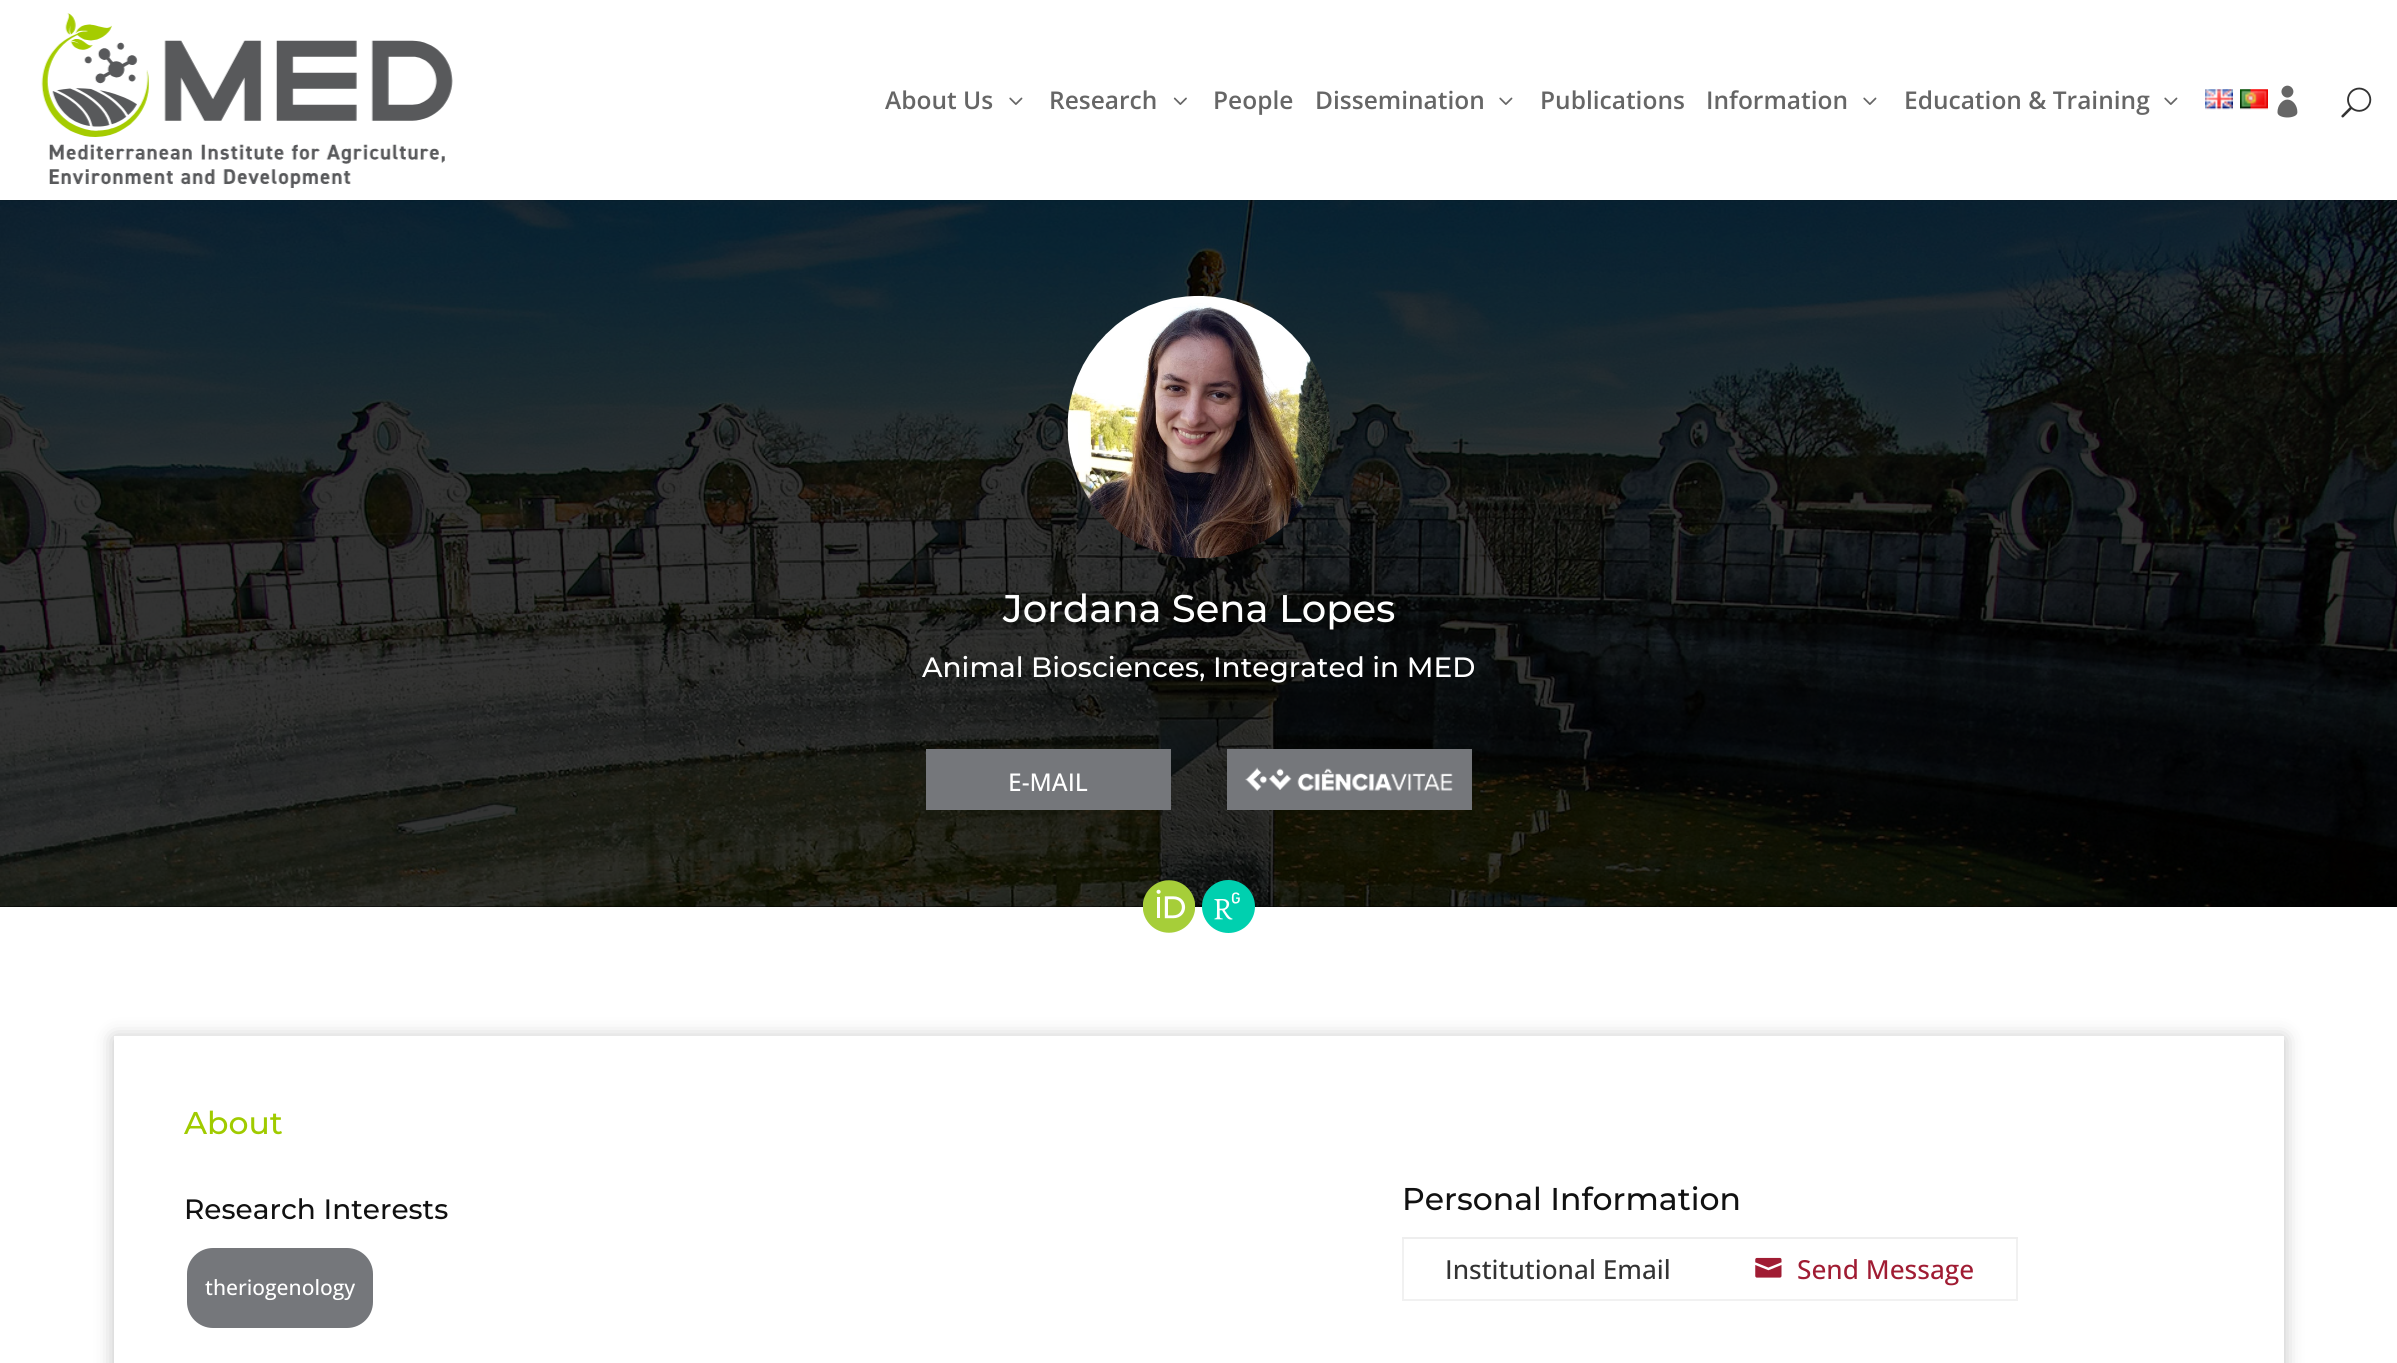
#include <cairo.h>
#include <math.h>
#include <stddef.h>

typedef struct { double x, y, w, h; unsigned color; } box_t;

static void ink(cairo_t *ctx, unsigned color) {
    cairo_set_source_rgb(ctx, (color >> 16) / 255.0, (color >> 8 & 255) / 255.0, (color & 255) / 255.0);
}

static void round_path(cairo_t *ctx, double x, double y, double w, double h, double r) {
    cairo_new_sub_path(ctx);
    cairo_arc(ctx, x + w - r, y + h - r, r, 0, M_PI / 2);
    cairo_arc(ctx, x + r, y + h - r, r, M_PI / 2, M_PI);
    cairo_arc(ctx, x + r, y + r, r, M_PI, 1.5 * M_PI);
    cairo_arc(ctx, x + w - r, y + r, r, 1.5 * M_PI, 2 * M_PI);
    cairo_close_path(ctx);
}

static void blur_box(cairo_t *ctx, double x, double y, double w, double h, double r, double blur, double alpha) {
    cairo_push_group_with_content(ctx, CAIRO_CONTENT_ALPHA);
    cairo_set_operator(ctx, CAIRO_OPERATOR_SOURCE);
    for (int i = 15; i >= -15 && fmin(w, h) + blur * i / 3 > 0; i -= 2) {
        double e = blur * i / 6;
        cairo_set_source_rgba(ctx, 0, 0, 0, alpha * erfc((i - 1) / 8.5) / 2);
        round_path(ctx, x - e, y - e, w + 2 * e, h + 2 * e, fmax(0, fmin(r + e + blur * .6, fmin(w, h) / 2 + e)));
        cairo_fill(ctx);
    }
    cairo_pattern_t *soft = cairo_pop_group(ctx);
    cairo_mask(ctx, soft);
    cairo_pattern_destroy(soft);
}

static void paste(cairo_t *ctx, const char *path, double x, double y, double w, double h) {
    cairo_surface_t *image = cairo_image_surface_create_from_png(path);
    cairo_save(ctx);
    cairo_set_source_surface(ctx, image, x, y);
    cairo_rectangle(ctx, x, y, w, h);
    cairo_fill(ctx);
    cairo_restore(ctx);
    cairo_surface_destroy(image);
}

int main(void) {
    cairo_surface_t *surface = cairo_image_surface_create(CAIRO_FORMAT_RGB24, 2397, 1363);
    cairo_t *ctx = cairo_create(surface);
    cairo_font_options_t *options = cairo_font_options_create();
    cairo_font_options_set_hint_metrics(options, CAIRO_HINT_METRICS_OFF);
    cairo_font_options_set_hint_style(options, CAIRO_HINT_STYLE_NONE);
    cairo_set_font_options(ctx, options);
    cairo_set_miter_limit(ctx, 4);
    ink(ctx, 0xFFFFFF);
    cairo_paint(ctx);
    ink(ctx, 0x000000);
    cairo_rectangle(ctx, 0, 200, 2397, 707);
    cairo_fill(ctx);
    paste(ctx, "media/8.png", 0, 200, 2397, 707);
    cairo_set_source_rgba(ctx, 0, 0, 0, 0.1);
    cairo_new_path(ctx);
    cairo_move_to(ctx, 0, 200);
    cairo_line_to(ctx, 0, 201);
    cairo_line_to(ctx, 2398, 201);
    cairo_line_to(ctx, 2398, 2);
    cairo_line_to(ctx, 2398, 200);
    cairo_close_path(ctx);
    cairo_fill(ctx);
    paste(ctx, "media/1.png", 41, 13, 412, 175);
    cairo_select_font_face(ctx, "Open Sans SemiBold", CAIRO_FONT_SLANT_NORMAL, CAIRO_FONT_WEIGHT_NORMAL);
    cairo_set_font_size(ctx, 24.5);
    ink(ctx, 0x666666);
    cairo_move_to(ctx, 885, 109);
    cairo_show_text(ctx, "About Us");
    paste(ctx, "media/2.png", 1009, 97, 14, 8);
    cairo_move_to(ctx, 1049, 109);
    cairo_show_text(ctx, "Research");
    paste(ctx, "media/3.png", 1173, 97, 14, 8);
    cairo_move_to(ctx, 1213, 109);
    cairo_show_text(ctx, "People");
    cairo_move_to(ctx, 1315, 109);
    cairo_show_text(ctx, "Dissemination");
    paste(ctx, "media/2.png", 1499, 97, 14, 8);
    cairo_move_to(ctx, 1540, 109);
    cairo_show_text(ctx, "Publications");
    cairo_move_to(ctx, 1706, 109);
    cairo_show_text(ctx, "Information");
    paste(ctx, "media/2.png", 1863, 97, 14, 8);
    cairo_move_to(ctx, 1904, 109);
    cairo_show_text(ctx, "Education & Training");
    paste(ctx, "media/2.png", 2164, 97, 14, 8);
    paste(ctx, "media/4.png", 2205, 89, 28, 21);
    paste(ctx, "media/5.png", 2240, 89, 28, 21);
    paste(ctx, "media/6.png", 2277, 85, 21, 33);
    paste(ctx, "media/7.png", 2341, 87, 31, 31);
    paste(ctx, "media/9.png", 1067, 295, 263, 264);
    cairo_select_font_face(ctx, "Montserrat Thin", CAIRO_FONT_SLANT_NORMAL, CAIRO_FONT_WEIGHT_NORMAL);
    cairo_set_font_size(ctx, 38.5);
    ink(ctx, 0xFFFFFF);
    cairo_move_to(ctx, 1003, 622);
    cairo_show_text(ctx, "Jordana Sena Lopes");
    cairo_set_font_size(ctx, 28);
    cairo_move_to(ctx, 922, 677);
    cairo_show_text(ctx, "Animal Biosciences, Integrated in MED");
    ink(ctx, 0x75777B);
    cairo_rectangle(ctx, 926, 749, 245, 61);
    cairo_fill(ctx);
    cairo_select_font_face(ctx, "Open Sans Medium", CAIRO_FONT_SLANT_NORMAL, CAIRO_FONT_WEIGHT_NORMAL);
    cairo_set_font_size(ctx, 24.5);
    ink(ctx, 0xFFFFFF);
    cairo_move_to(ctx, 1008, 791);
    cairo_show_text(ctx, "E-MAIL");
    ink(ctx, 0x75777B);
    cairo_rectangle(ctx, 1227, 749, 245, 61);
    cairo_fill(ctx);
    paste(ctx, "media/10.png", 1245, 767, 208, 24);
    paste(ctx, "media/11.png", 1143, 880, 52, 53);
    paste(ctx, "media/12.png", 1202, 880, 53, 53);
    cairo_save(ctx);
    cairo_set_fill_rule(ctx, CAIRO_FILL_RULE_EVEN_ODD);
    cairo_new_path(ctx);
    cairo_move_to(ctx, 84, 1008);
    cairo_line_to(ctx, 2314, 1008);
    cairo_line_to(ctx, 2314, 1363);
    cairo_line_to(ctx, 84, 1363);
    cairo_close_path(ctx);
    cairo_move_to(ctx, 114, 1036);
    cairo_line_to(ctx, 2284, 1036);
    cairo_line_to(ctx, 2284, 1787);
    cairo_line_to(ctx, 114, 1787);
    cairo_close_path(ctx);
    cairo_clip(ctx);
    ink(ctx, 0x000000);
    blur_box(ctx, 114, 1038, 2170, 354, 0, 9.5, 0.25);
    cairo_restore(ctx);
    cairo_select_font_face(ctx, "Montserrat Thin", CAIRO_FONT_SLANT_NORMAL, CAIRO_FONT_WEIGHT_NORMAL);
    cairo_set_font_size(ctx, 31.5);
    ink(ctx, 0xA0CB00);
    cairo_move_to(ctx, 184, 1134);
    cairo_show_text(ctx, "About");
    cairo_set_font_size(ctx, 28);
    ink(ctx, 0x111111);
    cairo_move_to(ctx, 184, 1219);
    cairo_show_text(ctx, "Research Interests");
    ink(ctx, 0x75777B);
    round_path(ctx, 187, 1248, 186, 80, 26);
    cairo_fill(ctx);
    cairo_select_font_face(ctx, "Open Sans Medium", CAIRO_FONT_SLANT_NORMAL, CAIRO_FONT_WEIGHT_NORMAL);
    cairo_set_font_size(ctx, 21);
    ink(ctx, 0xFFFFFF);
    cairo_move_to(ctx, 205, 1295);
    cairo_show_text(ctx, "theriogenology");
    cairo_select_font_face(ctx, "Montserrat Thin", CAIRO_FONT_SLANT_NORMAL, CAIRO_FONT_WEIGHT_NORMAL);
    cairo_set_font_size(ctx, 31.5);
    ink(ctx, 0x111111);
    cairo_move_to(ctx, 1402, 1210);
    cairo_show_text(ctx, "Personal Information");
    {
        static const box_t items[] = {
            {2016, 1237, 2, 63, 0xF1F1F1},
            {1402, 1299, 616, 2, 0xF1F1F1},
            {1402, 1237, 2, 63, 0xF1F1F1},
        };
        for (size_t i = 0; i < sizeof items / sizeof *items; i++) {
            ink(ctx, items[i].color);
            cairo_rectangle(ctx, items[i].x, items[i].y, items[i].w, items[i].h);
            cairo_fill(ctx);
        }
    }
    cairo_select_font_face(ctx, "Open Sans Medium", CAIRO_FONT_SLANT_NORMAL, CAIRO_FONT_WEIGHT_NORMAL);
    cairo_set_font_size(ctx, 26.25);
    ink(ctx, 0x333333);
    cairo_move_to(ctx, 1445, 1279);
    cairo_show_text(ctx, "Institutional Email");
    ink(ctx, 0xEEEEEE);
    cairo_rectangle(ctx, 1402, 1237, 616, 2);
    cairo_fill(ctx);
    paste(ctx, "media/13.png", 1755, 1257, 27, 21);
    ink(ctx, 0xA01C33);
    cairo_move_to(ctx, 1797, 1279);
    cairo_show_text(ctx, "Send Message");
    cairo_surface_write_to_png(surface, "image.png");
    cairo_font_options_destroy(options);
    cairo_destroy(ctx);
    cairo_surface_destroy(surface);
    return 0;
}
